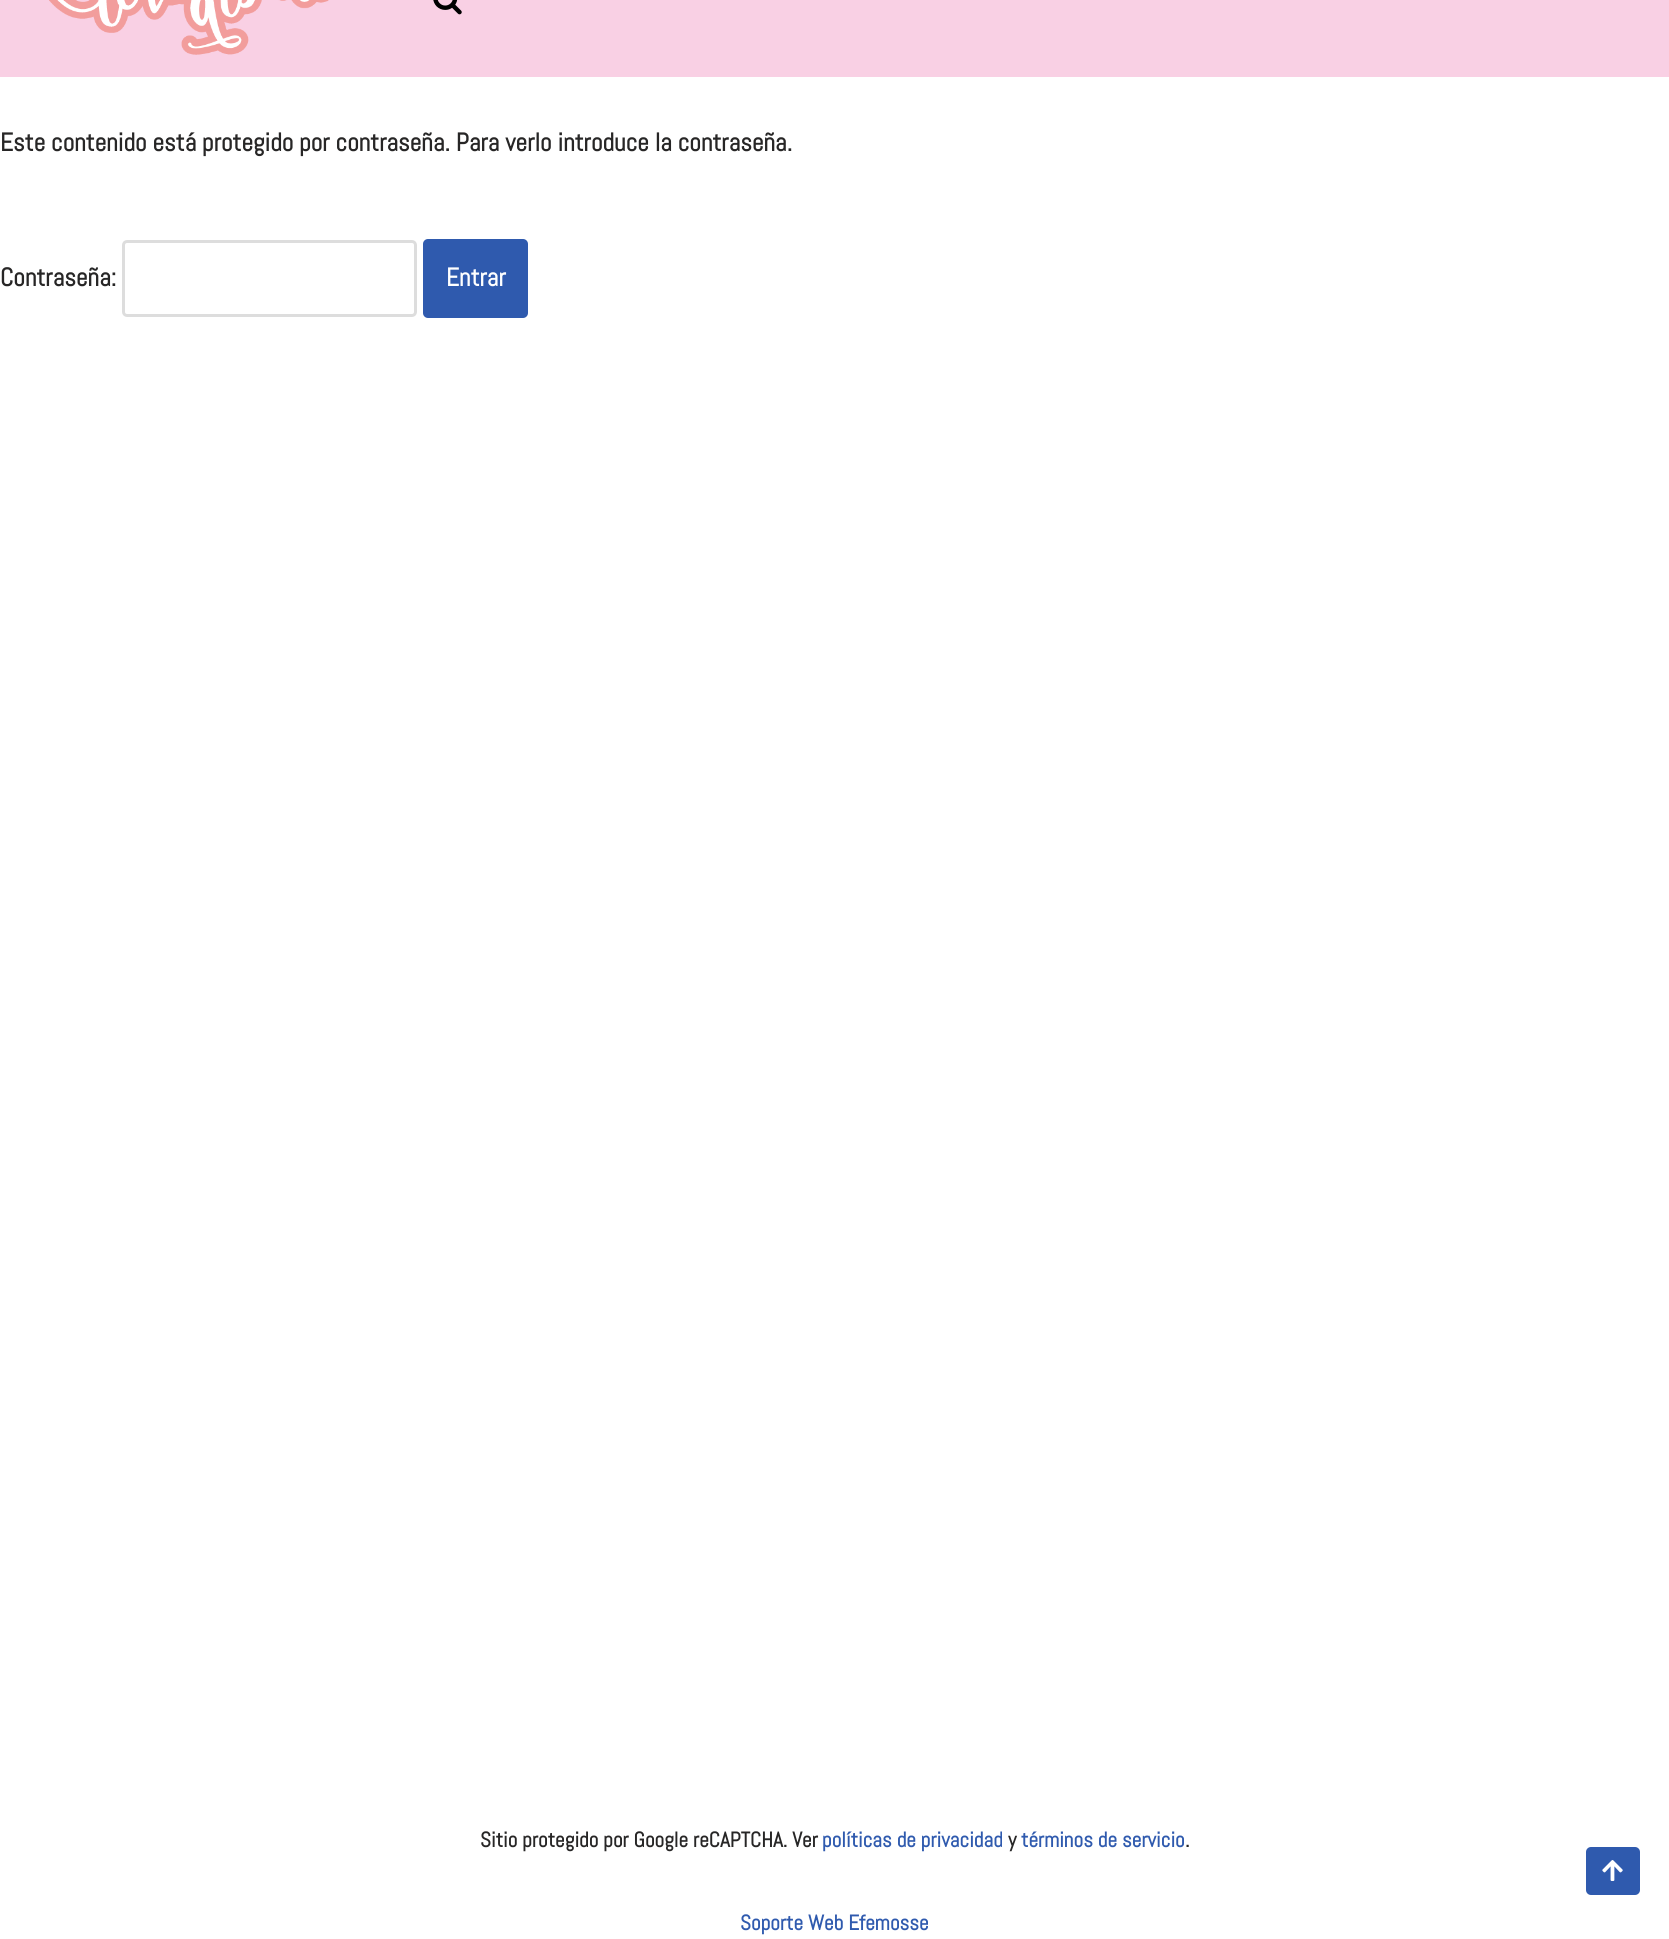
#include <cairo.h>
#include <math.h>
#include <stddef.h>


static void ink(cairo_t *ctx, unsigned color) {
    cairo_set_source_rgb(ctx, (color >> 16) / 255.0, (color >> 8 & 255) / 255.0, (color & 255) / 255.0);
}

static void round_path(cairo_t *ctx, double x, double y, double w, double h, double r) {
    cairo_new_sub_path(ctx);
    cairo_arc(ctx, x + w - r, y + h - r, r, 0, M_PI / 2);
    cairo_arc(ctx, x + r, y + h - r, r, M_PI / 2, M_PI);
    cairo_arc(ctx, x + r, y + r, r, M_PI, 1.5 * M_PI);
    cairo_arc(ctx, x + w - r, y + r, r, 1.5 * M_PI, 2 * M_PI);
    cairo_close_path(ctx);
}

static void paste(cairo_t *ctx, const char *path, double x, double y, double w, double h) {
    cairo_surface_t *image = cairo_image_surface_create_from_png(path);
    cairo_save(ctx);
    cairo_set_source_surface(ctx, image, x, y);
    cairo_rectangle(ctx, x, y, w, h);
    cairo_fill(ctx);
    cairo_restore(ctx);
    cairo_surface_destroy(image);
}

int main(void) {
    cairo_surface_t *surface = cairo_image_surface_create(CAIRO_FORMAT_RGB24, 1669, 1939);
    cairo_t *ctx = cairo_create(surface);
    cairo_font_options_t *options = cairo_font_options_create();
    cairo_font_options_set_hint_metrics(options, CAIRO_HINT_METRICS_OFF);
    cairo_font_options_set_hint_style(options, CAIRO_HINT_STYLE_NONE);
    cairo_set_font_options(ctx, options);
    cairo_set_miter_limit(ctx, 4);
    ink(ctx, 0xFFFFFF);
    cairo_paint(ctx);
    ink(ctx, 0xF9D0E4);
    cairo_rectangle(ctx, 0, 0, 1669, 77);
    cairo_fill(ctx);
    paste(ctx, "media/1.png", 49, 0, 280, 55);
    paste(ctx, "media/2.png", 433, 0, 29, 15);
    cairo_select_font_face(ctx, "Abel", CAIRO_FONT_SLANT_NORMAL, CAIRO_FONT_WEIGHT_BOLD);
    cairo_set_font_size(ctx, 25.5);
    ink(ctx, 0x272626);
    cairo_move_to(ctx, 0, 151);
    cairo_show_text(ctx, "Este contenido está protegido por contraseña. Para verlo introduce la contraseña.");
    cairo_move_to(ctx, 0, 286);
    cairo_show_text(ctx, "Contraseña:");
    round_path(ctx, 123.5, 241.5, 292, 74, 3.5);
    ink(ctx, 0xDDDDDD);
    cairo_set_line_width(ctx, 3);
    cairo_stroke(ctx);
    ink(ctx, 0x2F5AAE);
    round_path(ctx, 423, 239, 105, 79, 5);
    cairo_fill(ctx);
    ink(ctx, 0xFFFFFF);
    cairo_move_to(ctx, 446, 286);
    cairo_show_text(ctx, "Entrar");
    ink(ctx, 0x2F5AAE);
    round_path(ctx, 1586, 1847, 54, 48, 5);
    cairo_fill(ctx);
    paste(ctx, "media/3.png", 1602, 1860, 21, 21);
    cairo_set_font_size(ctx, 21.25);
    ink(ctx, 0x272626);
    cairo_move_to(ctx, 480, 1847);
    cairo_show_text(ctx, "Sitio protegido por Google reCAPTCHA. Ver");
    ink(ctx, 0x2F5AAE);
    cairo_move_to(ctx, 822, 1847);
    cairo_show_text(ctx, "políticas de privacidad");
    ink(ctx, 0x272626);
    cairo_move_to(ctx, 1008, 1847);
    cairo_show_text(ctx, "y");
    ink(ctx, 0x2F5AAE);
    cairo_move_to(ctx, 1021, 1847);
    cairo_show_text(ctx, "términos de servicio");
    ink(ctx, 0x272626);
    cairo_move_to(ctx, 1185, 1847);
    cairo_show_text(ctx, ".");
    ink(ctx, 0x2F5AAE);
    cairo_move_to(ctx, 740, 1930);
    cairo_show_text(ctx, "Soporte Web Efemosse");
    cairo_surface_write_to_png(surface, "image.png");
    cairo_font_options_destroy(options);
    cairo_destroy(ctx);
    cairo_surface_destroy(surface);
    return 0;
}
